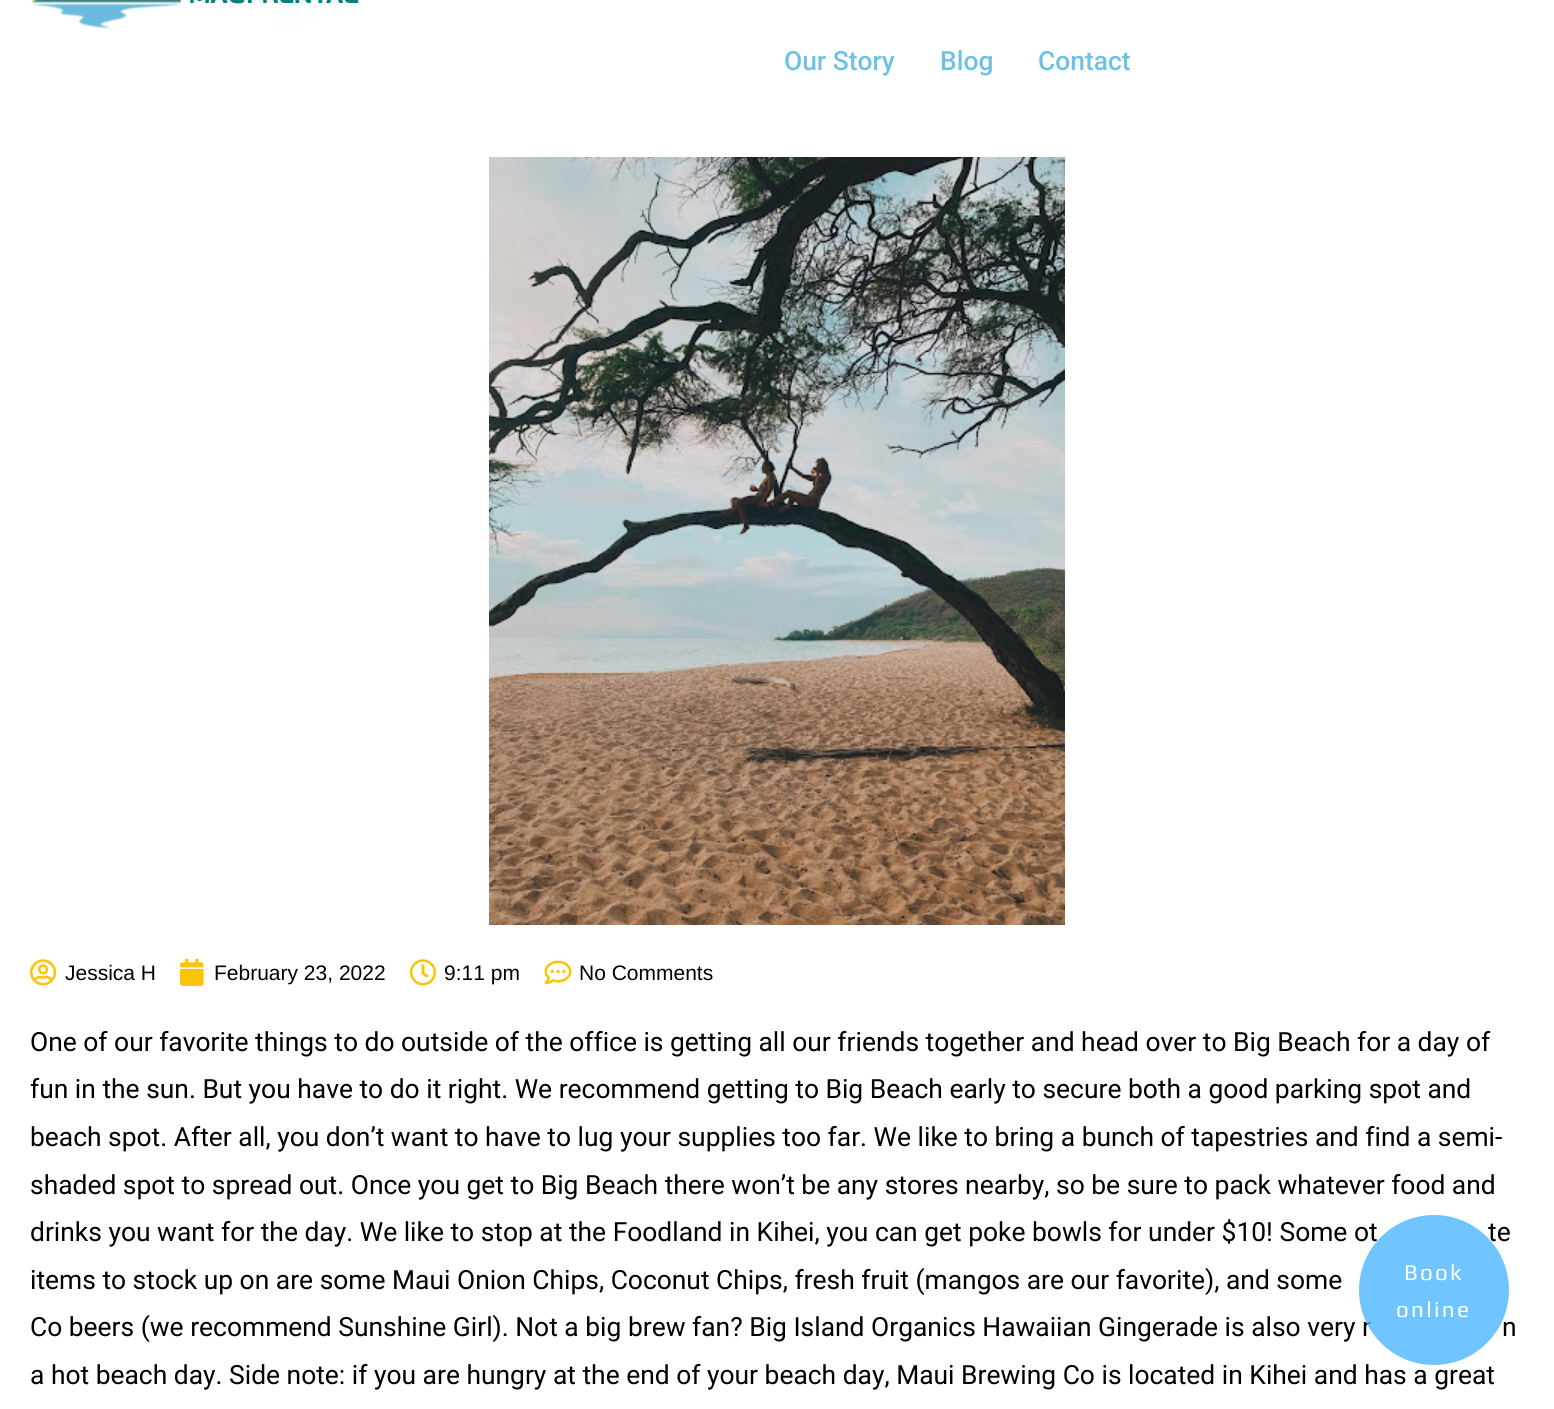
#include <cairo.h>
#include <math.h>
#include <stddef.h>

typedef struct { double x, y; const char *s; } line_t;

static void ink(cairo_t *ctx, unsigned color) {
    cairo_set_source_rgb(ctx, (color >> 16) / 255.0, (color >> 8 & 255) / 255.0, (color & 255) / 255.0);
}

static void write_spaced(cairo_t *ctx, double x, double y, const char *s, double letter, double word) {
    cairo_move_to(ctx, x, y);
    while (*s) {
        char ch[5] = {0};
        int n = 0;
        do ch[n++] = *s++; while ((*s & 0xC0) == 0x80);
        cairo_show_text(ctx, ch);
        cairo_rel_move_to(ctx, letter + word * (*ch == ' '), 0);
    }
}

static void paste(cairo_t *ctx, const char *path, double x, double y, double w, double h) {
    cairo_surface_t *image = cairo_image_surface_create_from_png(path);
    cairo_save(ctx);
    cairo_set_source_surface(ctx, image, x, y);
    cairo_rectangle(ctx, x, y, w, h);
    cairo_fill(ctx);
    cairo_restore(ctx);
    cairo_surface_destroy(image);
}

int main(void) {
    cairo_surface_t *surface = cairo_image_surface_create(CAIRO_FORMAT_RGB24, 1554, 1409);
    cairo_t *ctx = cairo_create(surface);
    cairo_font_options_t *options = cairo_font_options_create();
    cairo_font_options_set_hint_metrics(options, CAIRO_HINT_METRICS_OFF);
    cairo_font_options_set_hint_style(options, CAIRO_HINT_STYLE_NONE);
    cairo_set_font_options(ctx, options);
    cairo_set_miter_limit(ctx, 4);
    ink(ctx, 0xFFFFFF);
    cairo_paint(ctx);
    paste(ctx, "media/1.png", 31, 0, 328, 29);
    cairo_select_font_face(ctx, "Roboto Medium", CAIRO_FONT_SLANT_NORMAL, CAIRO_FONT_WEIGHT_NORMAL);
    cairo_set_font_size(ctx, 26.4);
    ink(ctx, 0x6EC1E4);
    {
        static const line_t items[] = {
            {784, 70, "Our Story"},
            {940, 70, "Blog"},
            {1038, 70, "Contact"},
        };
        for (size_t i = 0; i < sizeof items / sizeof *items; i++) {
            cairo_move_to(ctx, items[i].x, items[i].y);
            cairo_show_text(ctx, items[i].s);
        }
    }
    paste(ctx, "media/2.png", 489, 157, 576, 768);
    paste(ctx, "media/3.png", 30, 959, 27, 27);
    cairo_select_font_face(ctx, "Liberation Sans", CAIRO_FONT_SLANT_NORMAL, CAIRO_FONT_WEIGHT_NORMAL);
    cairo_set_font_size(ctx, 21);
    ink(ctx, 0x000000);
    cairo_move_to(ctx, 65, 980);
    cairo_show_text(ctx, "Jessica H");
    paste(ctx, "media/4.png", 180, 958, 24, 28);
    cairo_move_to(ctx, 214, 980);
    cairo_show_text(ctx, "February 23, 2022");
    paste(ctx, "media/5.png", 409, 959, 28, 27);
    cairo_move_to(ctx, 444, 980);
    cairo_show_text(ctx, "9:11 pm");
    paste(ctx, "media/6.png", 544, 960, 28, 25);
    cairo_move_to(ctx, 579, 980);
    cairo_show_text(ctx, "No Comments");
    cairo_select_font_face(ctx, "Roboto", CAIRO_FONT_SLANT_NORMAL, CAIRO_FONT_WEIGHT_NORMAL);
    cairo_set_font_size(ctx, 26.4);
    {
        static const line_t items[] = {
            {30, 1051, "One of our favorite things to do outside of the office is getting all our friends together and head over to Big Beach for a day of"},
            {30, 1098, "fun in the sun. But you have to do it right. We recommend getting to Big Beach early to secure both a good parking spot and"},
            {30, 1146, "beach spot. After all, you don’t want to have to lug your supplies too far. We like to bring a bunch of tapestries and find a semi-"},
            {30, 1194, "shaded spot to spread out. Once you get to Big Beach there won’t be any stores nearby, so be sure to pack whatever food and"},
            {30, 1241, "drinks you want for the day. We like to stop at the Foodland in Kihei, you can get poke bowls for under $10! Some ot"},
            {1488, 1241, "te"},
            {30, 1289, "items to stock up on are some Maui Onion Chips, Coconut Chips, fresh fruit (mangos are our favorite), and some"},
            {30, 1336, "Co beers (we recommend Sunshine Girl). Not a big brew fan? Big Island Organics Hawaiian Gingerade is also very r"},
            {1502, 1336, "n"},
            {30, 1384, "a hot beach day. Side note: if you are hungry at the end of your beach day, Maui Brewing Co is located in Kihei and has a great"},
        };
        for (size_t i = 0; i < sizeof items / sizeof *items; i++) {
            cairo_move_to(ctx, items[i].x, items[i].y);
            cairo_show_text(ctx, items[i].s);
        }
    }
    cairo_set_source_rgba(ctx, 0.302, 0.71, 1, 0.8);
    cairo_new_path(ctx);
    cairo_arc(ctx, 1434, 1290, 75, 0, 2 * M_PI);
    cairo_fill(ctx);
    cairo_select_font_face(ctx, "Play", CAIRO_FONT_SLANT_NORMAL, CAIRO_FONT_WEIGHT_NORMAL);
    cairo_set_font_size(ctx, 22.5);
    ink(ctx, 0xFFFFFF);
    write_spaced(ctx, 1404, 1280, "Book", 2.25, 0);
    write_spaced(ctx, 1396, 1317, "online", 2.25, 0);
    cairo_surface_write_to_png(surface, "image.png");
    cairo_font_options_destroy(options);
    cairo_destroy(ctx);
    cairo_surface_destroy(surface);
    return 0;
}
